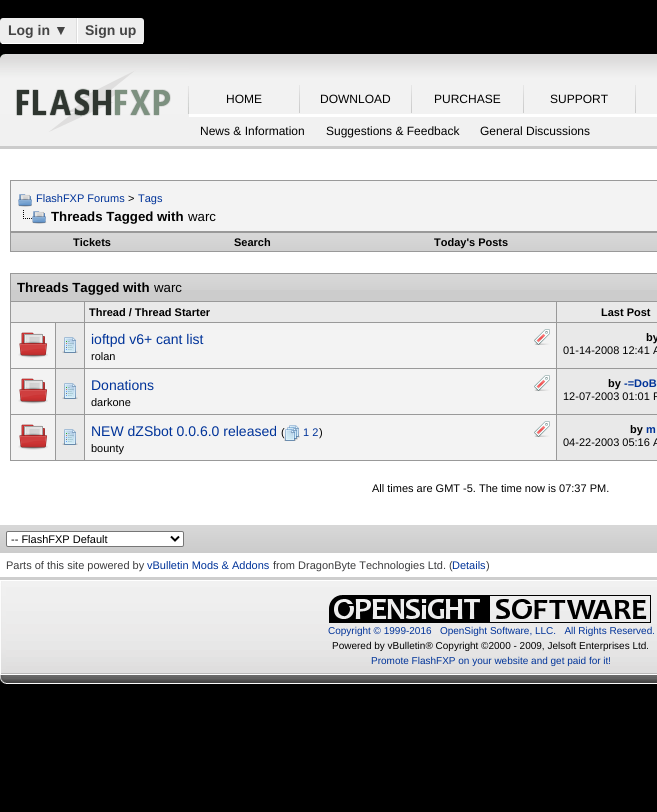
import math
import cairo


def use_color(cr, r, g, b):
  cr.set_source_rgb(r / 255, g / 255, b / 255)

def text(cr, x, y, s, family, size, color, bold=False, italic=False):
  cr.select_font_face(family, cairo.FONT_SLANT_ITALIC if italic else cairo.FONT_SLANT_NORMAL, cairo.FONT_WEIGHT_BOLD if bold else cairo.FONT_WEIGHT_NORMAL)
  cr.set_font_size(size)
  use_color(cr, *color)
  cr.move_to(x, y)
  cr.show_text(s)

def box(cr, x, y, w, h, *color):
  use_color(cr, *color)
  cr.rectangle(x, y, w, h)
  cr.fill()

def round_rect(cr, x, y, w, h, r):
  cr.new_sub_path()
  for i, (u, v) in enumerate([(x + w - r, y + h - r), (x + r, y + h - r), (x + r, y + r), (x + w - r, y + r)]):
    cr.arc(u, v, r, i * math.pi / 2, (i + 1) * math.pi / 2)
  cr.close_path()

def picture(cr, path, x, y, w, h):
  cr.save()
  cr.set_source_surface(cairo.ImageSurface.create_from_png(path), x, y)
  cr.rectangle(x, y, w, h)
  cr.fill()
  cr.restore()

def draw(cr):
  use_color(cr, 0, 0, 0)
  cr.paint()
  use_color(cr, 238, 238, 238)
  round_rect(cr, 0, 18, 144, 26, 3)
  cr.fill()
  box(cr, 2, 43, 141, 1, 255, 255, 255)
  box(cr, 77, 18, 1, 25, 255, 255, 255)
  box(cr, 76, 18, 1, 25, 221, 221, 221)
  picture(cr, "img_01.png", 189, 54, 468, 63)
  picture(cr, "img_04.png", 0, 117, 657, 32)
  picture(cr, "img_02.png", 0, 54, 189, 78)
  picture(cr, "img_03.png", 299, 85, 1, 28)
  picture(cr, "img_03.png", 411, 85, 1, 28)
  picture(cr, "img_03.png", 523, 85, 1, 28)
  picture(cr, "img_03.png", 635, 85, 1, 28)
  box(cr, 0, 149, 657, 376, 255, 255, 255)
  box(cr, 10, 180, 647, 72, 153, 153, 153)
  box(cr, 11, 181, 646, 50, 243, 243, 243)
  picture(cr, "img_05.png", 18, 194, 14, 13)
  picture(cr, "img_06.png", 23, 210, 24, 14)
  picture(cr, "img_07.png", 11, 233, 162, 18)
  picture(cr, "img_08.png", 173, 233, 158, 18)
  picture(cr, "img_09.png", 331, 233, 280, 18)
  picture(cr, "img_10.png", 611, 233, 46, 18)
  box(cr, 10, 273, 647, 188, 153, 153, 153)
  box(cr, 11, 290, 646, 11, 204, 204, 204)
  picture(cr, "img_11.png", 11, 274, 646, 16)
  box(cr, 11, 302, 73, 20, 233, 233, 233)
  box(cr, 85, 302, 471, 20, 233, 233, 233)
  box(cr, 557, 302, 100, 20, 233, 233, 233)
  box(cr, 11, 323, 44, 45, 243, 243, 243)
  picture(cr, "img_12.png", 18, 332, 30, 26)
  box(cr, 56, 323, 28, 45, 233, 233, 233)
  picture(cr, "img_13.png", 62, 337, 16, 16)
  box(cr, 85, 323, 471, 45, 243, 243, 243)
  picture(cr, "img_14.png", 534, 329, 16, 16)
  box(cr, 557, 323, 100, 45, 233, 233, 233)
  box(cr, 11, 369, 44, 45, 243, 243, 243)
  picture(cr, "img_12.png", 18, 378, 30, 26)
  box(cr, 56, 369, 28, 45, 233, 233, 233)
  picture(cr, "img_13.png", 62, 383, 16, 16)
  box(cr, 85, 369, 471, 45, 243, 243, 243)
  picture(cr, "img_14.png", 534, 375, 16, 16)
  box(cr, 557, 369, 100, 45, 233, 233, 233)
  box(cr, 11, 415, 44, 45, 243, 243, 243)
  picture(cr, "img_12.png", 18, 424, 30, 26)
  box(cr, 56, 415, 28, 45, 233, 233, 233)
  picture(cr, "img_13.png", 62, 429, 16, 16)
  box(cr, 85, 415, 471, 45, 243, 243, 243)
  picture(cr, "img_14.png", 534, 421, 16, 16)
  box(cr, 557, 415, 100, 45, 233, 233, 233)
  box(cr, 0, 553, 657, 24, 255, 255, 255)
  picture(cr, "img_16.png", 0, 525, 190, 28)
  round_rect(cr, 6.5, 531.5, 177, 15, 1.5)
  cr.fill_preserve()
  use_color(cr, 118, 118, 118)
  cr.set_line_width(1)
  cr.stroke()
  cr.new_path()
  cr.move_to(171, 536.5)
  cr.line_to(175, 540.5)
  cr.line_to(179, 536.5)
  use_color(cr, 0, 0, 0)
  cr.set_line_width(2)
  cr.stroke()
  picture(cr, "img_17.png", 190, 525, 467, 28)
  box(cr, 0, 577, 657, 3, 206, 206, 206)
  picture(cr, "img_18.png", 0, 580, 6, 104)
  picture(cr, "img_19.png", 6, 580, 651, 104)
  picture(cr, "img_20.png", 329, 595, 322, 28)
  text(cr, 8, 35, "Log in ▼", "Liberation Sans", 14, (68, 68, 68), bold=True)
  text(cr, 85, 35, "Sign up", "Liberation Sans", 14, (68, 68, 68), bold=True)
  text(cr, 226, 103, "HOME", "Liberation Sans", 12, (0, 0, 0))
  text(cr, 320, 103, "DOWNLOAD", "Liberation Sans", 12, (0, 0, 0))
  text(cr, 434, 103, "PURCHASE", "Liberation Sans", 12, (0, 0, 0))
  text(cr, 550, 103, "SUPPORT", "Liberation Sans", 12, (0, 0, 0))
  text(cr, 200, 135, "News & Information", "Liberation Sans", 12, (0, 0, 0))
  text(cr, 326, 135, "Suggestions & Feedback", "Liberation Sans", 12, (0, 0, 0))
  text(cr, 480, 135, "General Discussions", "Liberation Sans", 12, (0, 0, 0))
  text(cr, 36, 202, "FlashFXP Forums", "Liberation Sans", 11, (0, 51, 153))
  text(cr, 128, 202, ">", "Liberation Sans", 11, (0, 0, 0))
  text(cr, 138, 202, "Tags", "Liberation Sans", 11, (0, 51, 153))
  text(cr, 51, 221, "Threads Tagged with", "Liberation Sans", 13.25, (0, 0, 0), bold=True)
  text(cr, 188, 221, "warc", "Liberation Sans", 13.25, (0, 0, 0))
  text(cr, 73, 246, "Tickets", "Liberation Sans", 11, (0, 0, 0), bold=True)
  text(cr, 234, 246, "Search", "Liberation Sans", 11, (0, 0, 0), bold=True)
  text(cr, 434, 246, "Today's Posts", "Liberation Sans", 11, (0, 0, 0), bold=True)
  text(cr, 17, 292, "Threads Tagged with", "Liberation Sans", 13.25, (0, 0, 0), bold=True)
  text(cr, 154, 292, "warc", "Liberation Sans", 13.25, (0, 0, 0))
  text(cr, 89, 316, "Thread / Thread Starter", "Liberation Sans", 11, (0, 0, 0), bold=True)
  text(cr, 601, 316, "Last Post", "Liberation Sans", 11, (0, 0, 0), bold=True)
  text(cr, 91, 344, "ioftpd v6+ cant list", "Liberation Sans", 14, (0, 51, 153))
  text(cr, 91, 360, "rolan", "Liberation Sans", 11, (0, 0, 0))
  text(cr, 646, 341, "by", "Liberation Sans", 11, (0, 0, 0), bold=True)
  text(cr, 563, 354, "01-14-2008 12:41 A", "Liberation Sans", 11, (0, 0, 0))
  text(cr, 91, 390, "Donations", "Liberation Sans", 14, (0, 51, 153))
  text(cr, 91, 406, "darkone", "Liberation Sans", 11, (0, 0, 0))
  text(cr, 608, 387, "by", "Liberation Sans", 11, (0, 0, 0), bold=True)
  text(cr, 624, 387, "-=DoB", "Liberation Sans", 11, (0, 51, 153), bold=True)
  text(cr, 563, 400, "12-07-2003 01:01 P", "Liberation Sans", 11, (0, 0, 0))
  text(cr, 91, 436, "NEW dZSbot 0.0.6.0 released", "Liberation Sans", 14, (0, 51, 153))
  text(cr, 281, 436, "(", "Liberation Sans", 11, (0, 0, 0))
  picture(cr, "img_15.png", 284, 425, 16, 16)
  text(cr, 303, 436, "1 2", "Liberation Sans", 11, (0, 51, 153))
  text(cr, 319, 436, ")", "Liberation Sans", 11, (0, 0, 0))
  text(cr, 91, 452, "bounty", "Liberation Sans", 11, (0, 0, 0))
  text(cr, 630, 433, "by", "Liberation Sans", 11, (0, 0, 0), bold=True)
  text(cr, 646, 433, "m", "Liberation Sans", 11, (0, 51, 153), bold=True)
  text(cr, 563, 446, "04-22-2003 05:16 A", "Liberation Sans", 11, (0, 0, 0))
  text(cr, 372, 492, "All times are GMT -5. The time now is 07:37 PM.", "Liberation Sans", 11, (0, 0, 0))
  text(cr, 11, 543, "-- FlashFXP Default", "Liberation Sans", 11, (0, 0, 0))
  text(cr, 6, 569, "Parts of this site powered by", "Liberation Sans", 11, (60, 60, 61))
  text(cr, 147, 569, "vBulletin Mods & Addons", "Liberation Sans", 11, (0, 51, 153))
  text(cr, 273, 569, "from DragonByte Technologies Ltd. (", "Liberation Sans", 11, (60, 60, 61))
  text(cr, 452, 569, "Details", "Liberation Sans", 11, (0, 51, 153))
  text(cr, 486, 569, ")", "Liberation Sans", 11, (60, 60, 61))
  text(cr, 328, 634, "Copyright © 1999-2016   OpenSight Software, LLC.   All Rights Reserved.", "Liberation Sans", 10, (0, 51, 153))
  text(cr, 332, 649, "Powered by vBulletin® Copyright ©2000 - 2009, Jelsoft Enterprises Ltd.", "Liberation Sans", 10, (0, 0, 0))
  text(cr, 371, 664, "Promote FlashFXP on your website and get paid for it!", "Liberation Sans", 10, (0, 51, 153))


surface = cairo.ImageSurface(cairo.FORMAT_RGB24, 657, 812)
cr = cairo.Context(surface)
options = cairo.FontOptions()
options.set_hint_metrics(cairo.HINT_METRICS_OFF)
options.set_hint_style(cairo.HINT_STYLE_NONE)
cr.set_font_options(options)
cr.set_miter_limit(4)
draw(cr)
surface.write_to_png("out.png")
